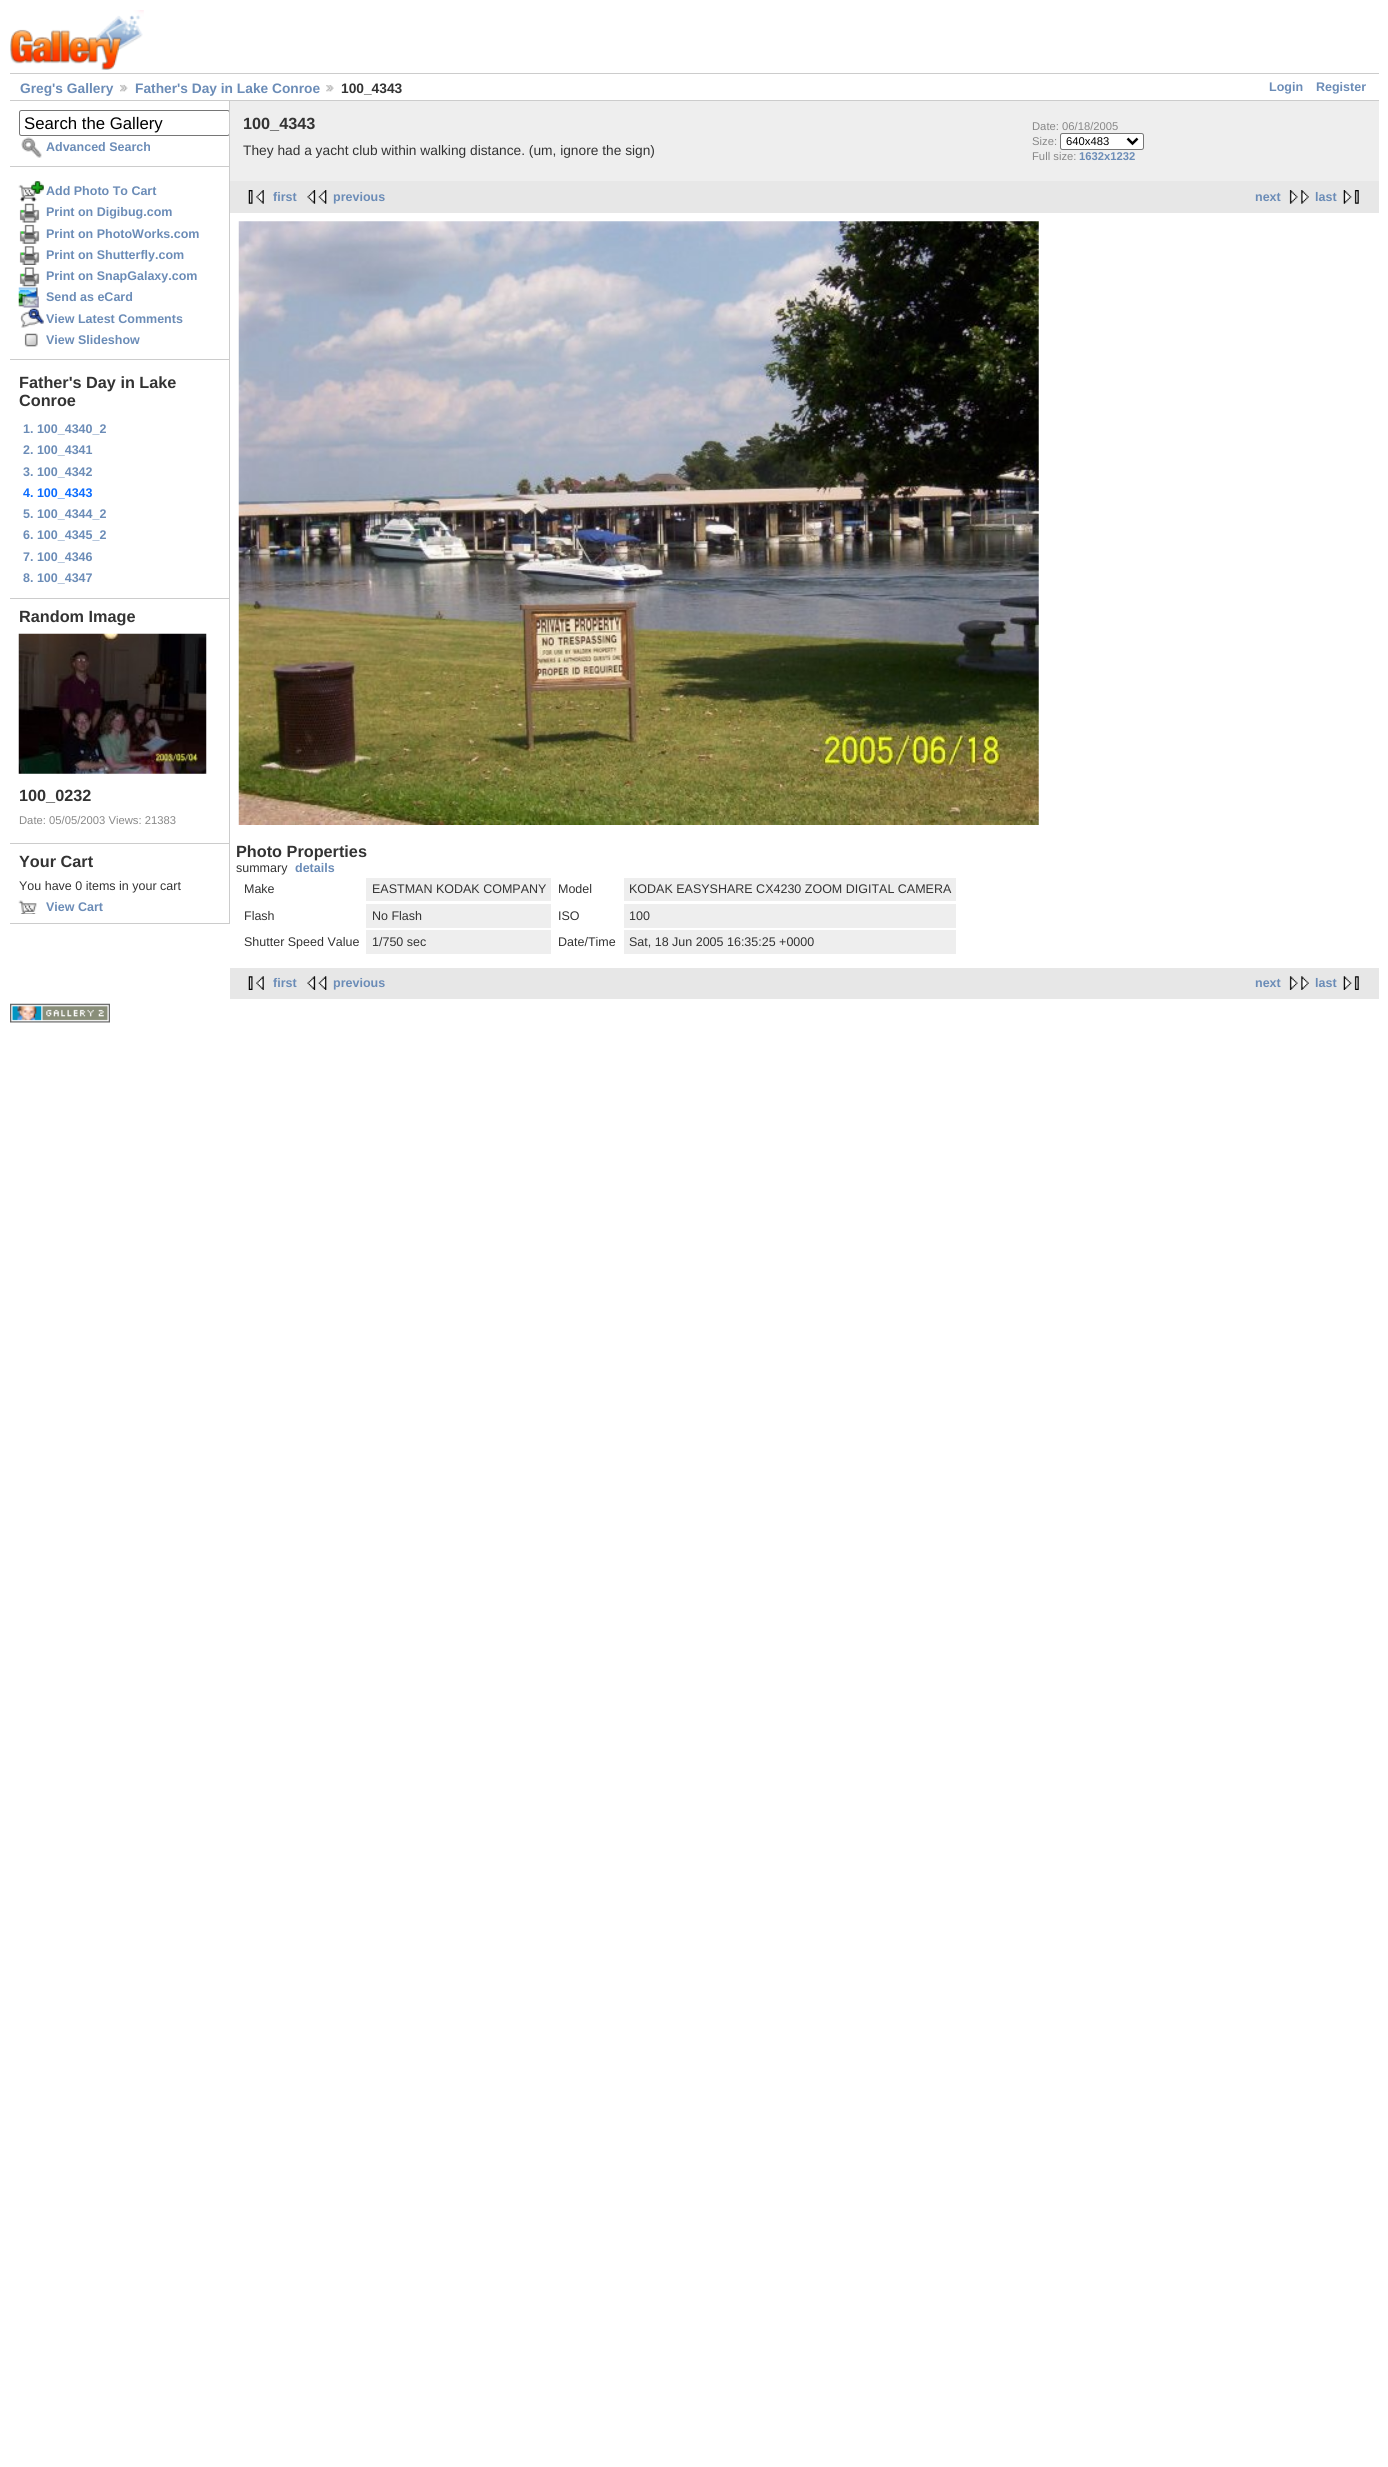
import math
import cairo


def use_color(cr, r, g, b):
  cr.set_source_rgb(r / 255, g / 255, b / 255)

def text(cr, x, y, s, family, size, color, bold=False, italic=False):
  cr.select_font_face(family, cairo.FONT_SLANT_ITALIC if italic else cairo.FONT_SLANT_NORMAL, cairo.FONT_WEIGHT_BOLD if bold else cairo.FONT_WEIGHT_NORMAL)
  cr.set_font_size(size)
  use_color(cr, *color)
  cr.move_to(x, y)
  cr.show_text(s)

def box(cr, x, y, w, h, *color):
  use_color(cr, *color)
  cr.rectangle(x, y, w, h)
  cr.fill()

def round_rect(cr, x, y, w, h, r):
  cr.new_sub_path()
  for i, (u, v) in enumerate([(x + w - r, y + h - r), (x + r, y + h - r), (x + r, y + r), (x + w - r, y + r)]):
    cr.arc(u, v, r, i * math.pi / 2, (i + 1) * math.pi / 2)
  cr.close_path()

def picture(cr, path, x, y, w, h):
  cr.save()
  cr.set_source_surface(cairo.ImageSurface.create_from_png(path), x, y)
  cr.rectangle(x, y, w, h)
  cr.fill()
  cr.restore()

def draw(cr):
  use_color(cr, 255, 255, 255)
  cr.paint()
  picture(cr, "img_01.png", 10, 10, 134, 60)
  box(cr, 10, 73, 1369, 1, 204, 204, 204)
  box(cr, 10, 100, 1369, 1, 204, 204, 204)
  picture(cr, "img_02.png", 120, 84, 8, 8)
  picture(cr, "img_03.png", 326, 85, 8, 7)
  box(cr, 229, 101, 1, 823, 204, 204, 204)
  box(cr, 10, 166, 219, 1, 204, 204, 204)
  cr.save()
  cr.rectangle(10, 101, 219, 823)
  cr.clip()
  round_rect(cr, 19.5, 110.5, 210, 25, 2)
  use_color(cr, 118, 118, 118)
  cr.set_line_width(1)
  cr.stroke()
  cr.restore()
  picture(cr, "img_04.png", 21, 137, 21, 21)
  box(cr, 10, 359, 219, 1, 204, 204, 204)
  picture(cr, "img_05.png", 18, 181, 26, 21)
  picture(cr, "img_06.png", 19, 203, 21, 20)
  picture(cr, "img_07.png", 19, 224, 21, 20)
  picture(cr, "img_08.png", 19, 246, 21, 19)
  picture(cr, "img_09.png", 19, 267, 21, 20)
  picture(cr, "img_10.png", 18, 287, 21, 21)
  picture(cr, "img_11.png", 20, 308, 24, 20)
  picture(cr, "img_12.png", 24, 333, 14, 14)
  box(cr, 10, 598, 219, 1, 204, 204, 204)
  box(cr, 10, 843, 219, 1, 204, 204, 204)
  picture(cr, "img_13.png", 18, 633, 189, 141)
  box(cr, 10, 923, 219, 1, 204, 204, 204)
  picture(cr, "img_14.png", 18, 900, 19, 14)
  box(cr, 230, 101, 1149, 80, 238, 238, 238)
  use_color(cr, 255, 255, 255)
  round_rect(cr, 1060.5, 133.5, 83, 16, 2)
  cr.fill_preserve()
  use_color(cr, 118, 118, 118)
  cr.set_line_width(1)
  cr.stroke()
  cr.new_path()
  cr.move_to(1127.5, 138.5)
  cr.line_to(1132.5, 143.5)
  cr.line_to(1137.5, 138.5)
  use_color(cr, 0, 0, 0)
  cr.set_line_width(2.5)
  cr.stroke()
  box(cr, 230, 181, 1149, 32, 231, 231, 231)
  picture(cr, "img_15.png", 248, 190, 16, 14)
  picture(cr, "img_16.png", 307, 190, 20, 14)
  picture(cr, "img_17.png", 1289, 190, 20, 14)
  picture(cr, "img_18.png", 1343, 190, 16, 14)
  picture(cr, "img_19.png", 238, 221, 801, 604)
  box(cr, 366, 878, 185, 23, 238, 238, 238)
  box(cr, 624, 878, 332, 23, 238, 238, 238)
  box(cr, 366, 904, 185, 24, 238, 238, 238)
  box(cr, 624, 904, 332, 24, 238, 238, 238)
  box(cr, 366, 930, 185, 24, 238, 238, 238)
  box(cr, 624, 930, 332, 24, 238, 238, 238)
  box(cr, 230, 968, 1149, 31, 231, 231, 231)
  picture(cr, "img_20.png", 248, 976, 16, 14)
  picture(cr, "img_21.png", 307, 976, 20, 14)
  picture(cr, "img_22.png", 1289, 976, 20, 14)
  picture(cr, "img_23.png", 1343, 976, 16, 14)
  picture(cr, "img_24.png", 10, 1003, 100, 20)
  text(cr, 20, 93, "Greg's Gallery", "Liberation Sans", 13.75, (107, 140, 183), bold=True)
  text(cr, 135, 93, "Father's Day in Lake Conroe", "Liberation Sans", 13.75, (107, 140, 183), bold=True)
  text(cr, 341, 93, "100_4343", "Liberation Sans", 13.75, (51, 51, 51), bold=True)
  text(cr, 1269, 91, "Login", "Liberation Sans", 12.5, (107, 140, 183), bold=True)
  text(cr, 1316, 91, "Register", "Liberation Sans", 12.5, (107, 140, 183), bold=True)
  text(cr, 24, 129, "Search the Gallery", "Liberation Sans", 16.75, (0, 0, 0))
  text(cr, 46, 151, "Advanced Search", "Liberation Sans", 12.5, (107, 140, 183), bold=True)
  text(cr, 46, 195, "Add Photo To Cart", "Liberation Sans", 12.5, (107, 140, 183), bold=True)
  text(cr, 46, 216, "Print on Digibug.com", "Liberation Sans", 12.5, (107, 140, 183), bold=True)
  text(cr, 46, 238, "Print on PhotoWorks.com", "Liberation Sans", 12.5, (107, 140, 183), bold=True)
  text(cr, 46, 259, "Print on Shutterfly.com", "Liberation Sans", 12.5, (107, 140, 183), bold=True)
  text(cr, 46, 280, "Print on SnapGalaxy.com", "Liberation Sans", 12.5, (107, 140, 183), bold=True)
  text(cr, 46, 301, "Send as eCard", "Liberation Sans", 12.5, (107, 140, 183), bold=True)
  text(cr, 46, 323, "View Latest Comments", "Liberation Sans", 12.5, (107, 140, 183), bold=True)
  text(cr, 46, 344, "View Slideshow", "Liberation Sans", 12.5, (107, 140, 183), bold=True)
  text(cr, 19, 388, "Father's Day in Lake", "Liberation Sans", 16.25, (51, 51, 51), bold=True)
  text(cr, 19, 406, "Conroe", "Liberation Sans", 16.25, (51, 51, 51), bold=True)
  text(cr, 23, 433, "1. 100_4340_2", "Liberation Sans", 12.5, (107, 140, 183), bold=True)
  text(cr, 23, 454, "2. 100_4341", "Liberation Sans", 12.5, (107, 140, 183), bold=True)
  text(cr, 23, 476, "3. 100_4342", "Liberation Sans", 12.5, (107, 140, 183), bold=True)
  text(cr, 23, 497, "4. 100_4343", "Liberation Sans", 12.5, (11, 108, 255), bold=True)
  text(cr, 23, 518, "5. 100_4344_2", "Liberation Sans", 12.5, (107, 140, 183), bold=True)
  text(cr, 23, 539, "6. 100_4345_2", "Liberation Sans", 12.5, (107, 140, 183), bold=True)
  text(cr, 23, 561, "7. 100_4346", "Liberation Sans", 12.5, (107, 140, 183), bold=True)
  text(cr, 23, 582, "8. 100_4347", "Liberation Sans", 12.5, (107, 140, 183), bold=True)
  text(cr, 19, 622, "Random Image", "Liberation Sans", 16.25, (51, 51, 51), bold=True)
  text(cr, 19, 801, "100_0232", "Liberation Sans", 16.25, (51, 51, 51), bold=True)
  text(cr, 19, 824, "Date: 05/05/2003 Views: 21383", "Liberation Sans", 11.25, (136, 136, 136))
  text(cr, 19, 867, "Your Cart", "Liberation Sans", 16.25, (51, 51, 51), bold=True)
  text(cr, 19, 890, "You have 0 items in your cart", "Liberation Sans", 12.5, (51, 51, 51))
  text(cr, 46, 911, "View Cart", "Liberation Sans", 12.5, (107, 140, 183), bold=True)
  text(cr, 243, 129, "100_4343", "Liberation Sans", 16.25, (51, 51, 51), bold=True)
  text(cr, 243, 155, "They had a yacht club within walking distance. (um, ignore the sign)", "Liberation Sans", 13.75, (51, 51, 51))
  text(cr, 1032, 130, "Date: 06/18/2005", "Liberation Sans", 11.25, (136, 136, 136))
  text(cr, 1032, 145, "Size:", "Liberation Sans", 11.25, (136, 136, 136))
  text(cr, 1066, 145, "640x483", "Liberation Sans", 11.25, (0, 0, 0))
  text(cr, 1032, 160, "Full size:", "Liberation Sans", 11.25, (136, 136, 136))
  text(cr, 1079, 160, "1632x1232", "Liberation Sans", 11.25, (107, 140, 183), bold=True)
  text(cr, 273, 201, "first", "Liberation Sans", 12.5, (107, 140, 183), bold=True)
  text(cr, 333, 201, "previous", "Liberation Sans", 12.5, (107, 140, 183), bold=True)
  text(cr, 1255, 201, "next", "Liberation Sans", 12.5, (107, 140, 183), bold=True)
  text(cr, 1315, 201, "last", "Liberation Sans", 12.5, (107, 140, 183), bold=True)
  text(cr, 236, 857, "Photo Properties", "Liberation Sans", 16.25, (51, 51, 51), bold=True)
  text(cr, 236, 872, "summary", "Liberation Sans", 12.5, (51, 51, 51))
  text(cr, 295, 872, "details", "Liberation Sans", 12.5, (107, 140, 183), bold=True)
  text(cr, 244, 893, "Make", "Liberation Sans", 12.5, (51, 51, 51))
  text(cr, 372, 893, "EASTMAN KODAK COMPANY", "Liberation Sans", 12.5, (51, 51, 51))
  text(cr, 558, 893, "Model", "Liberation Sans", 12.5, (51, 51, 51))
  text(cr, 629, 893, "KODAK EASYSHARE CX4230 ZOOM DIGITAL CAMERA", "Liberation Sans", 12.5, (51, 51, 51))
  text(cr, 244, 920, "Flash", "Liberation Sans", 12.5, (51, 51, 51))
  text(cr, 372, 920, "No Flash", "Liberation Sans", 12.5, (51, 51, 51))
  text(cr, 558, 920, "ISO", "Liberation Sans", 12.5, (51, 51, 51))
  text(cr, 629, 920, "100", "Liberation Sans", 12.5, (51, 51, 51))
  text(cr, 244, 946, "Shutter Speed Value", "Liberation Sans", 12.5, (51, 51, 51))
  text(cr, 372, 946, "1/750 sec", "Liberation Sans", 12.5, (51, 51, 51))
  text(cr, 558, 946, "Date/Time", "Liberation Sans", 12.5, (51, 51, 51))
  text(cr, 629, 946, "Sat, 18 Jun 2005 16:35:25 +0000", "Liberation Sans", 12.5, (51, 51, 51))
  text(cr, 273, 987, "first", "Liberation Sans", 12.5, (107, 140, 183), bold=True)
  text(cr, 333, 987, "previous", "Liberation Sans", 12.5, (107, 140, 183), bold=True)
  text(cr, 1255, 987, "next", "Liberation Sans", 12.5, (107, 140, 183), bold=True)
  text(cr, 1315, 987, "last", "Liberation Sans", 12.5, (107, 140, 183), bold=True)


surface = cairo.ImageSurface(cairo.FORMAT_RGB24, 1388, 2467)
cr = cairo.Context(surface)
options = cairo.FontOptions()
options.set_hint_metrics(cairo.HINT_METRICS_OFF)
options.set_hint_style(cairo.HINT_STYLE_NONE)
cr.set_font_options(options)
cr.set_miter_limit(4)
draw(cr)
surface.write_to_png("out.png")
